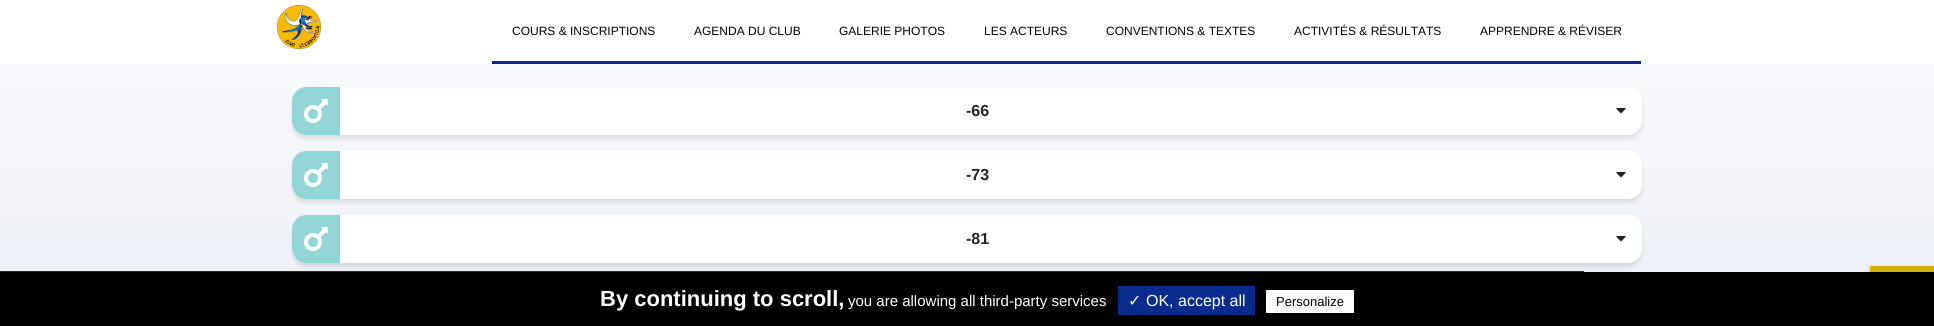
import math
import cairo


def use_color(cr, r, g, b):
  cr.set_source_rgb(r / 255, g / 255, b / 255)

def text(cr, x, y, s, family, size, color, bold=False, italic=False):
  cr.select_font_face(family, cairo.FONT_SLANT_ITALIC if italic else cairo.FONT_SLANT_NORMAL, cairo.FONT_WEIGHT_BOLD if bold else cairo.FONT_WEIGHT_NORMAL)
  cr.set_font_size(size)
  use_color(cr, *color)
  cr.move_to(x, y)
  cr.show_text(s)

def box(cr, x, y, w, h, *color):
  use_color(cr, *color)
  cr.rectangle(x, y, w, h)
  cr.fill()

def round_rect(cr, x, y, w, h, r):
  cr.new_sub_path()
  for i, (u, v) in enumerate([(x + w - r, y + h - r), (x + r, y + h - r), (x + r, y + r), (x + w - r, y + r)]):
    cr.arc(u, v, r, i * math.pi / 2, (i + 1) * math.pi / 2)
  cr.close_path()

def shadow(cr, x, y, w, h, r, blur, alpha):
  cr.push_group_with_content(cairo.CONTENT_ALPHA)
  cr.set_operator(cairo.OPERATOR_SOURCE)
  for i in range(15, -16, -2):
    e = blur * i / 6
    if min(w, h) + 2 * e > 0:
      cr.set_source_rgba(0, 0, 0, alpha * math.erfc((i - 1) / 8.5) / 2)
      round_rect(cr, x - e, y - e, w + 2 * e, h + 2 * e, max(0, min(r + e + blur * .6, min(w, h) / 2 + e)))
      cr.fill()
  cr.mask(cr.pop_group())

def picture(cr, path, x, y, w, h):
  cr.save()
  cr.set_source_surface(cairo.ImageSurface.create_from_png(path), x, y)
  cr.rectangle(x, y, w, h)
  cr.fill()
  cr.restore()

def draw(cr):
  use_color(cr, 255, 255, 255)
  cr.paint()
  picture(cr, "img_01.png", 277, 5, 44, 44)
  box(cr, 492, 61, 1149, 3, 8, 44, 140)
  gradient = cairo.LinearGradient(967, 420, 967, -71)
  gradient.add_color_stop_rgba(0, 0.906, 0.922, 0.957, 1)
  gradient.add_color_stop_rgba(1, 1, 1, 1, 1)
  cr.set_source(gradient)
  cr.rectangle(0, 64, 1934, 208)
  cr.fill()
  use_color(cr, 0, 0, 0)
  shadow(cr, 292, 91, 1350, 48, 14, 2, 0.1)
  use_color(cr, 255, 255, 255)
  round_rect(cr, 292, 87, 1350, 48, 14)
  cr.fill()
  use_color(cr, 147, 212, 212)
  cr.new_path()
  cr.move_to(306, 87)
  cr.line_to(340, 87)
  cr.line_to(340, 135)
  cr.line_to(306, 135)
  cr.curve_to(298.5, 135, 292, 128.5, 292, 121)
  cr.line_to(292, 101)
  cr.curve_to(292, 93.5, 298.5, 87, 306, 87)
  cr.close_path()
  cr.fill()
  picture(cr, "img_02.png", 304, 99, 24, 24)
  picture(cr, "img_03.png", 1616, 108, 10, 6)
  use_color(cr, 0, 0, 0)
  shadow(cr, 292, 155, 1350, 48, 14, 2, 0.1)
  use_color(cr, 255, 255, 255)
  round_rect(cr, 292, 151, 1350, 48, 14)
  cr.fill()
  use_color(cr, 147, 212, 212)
  cr.new_path()
  cr.move_to(306, 151)
  cr.line_to(340, 151)
  cr.line_to(340, 199)
  cr.line_to(306, 199)
  cr.curve_to(298.5, 199, 292, 192.5, 292, 185)
  cr.line_to(292, 165)
  cr.curve_to(292, 157.5, 298.5, 151, 306, 151)
  cr.close_path()
  cr.fill()
  picture(cr, "img_02.png", 304, 163, 24, 24)
  picture(cr, "img_03.png", 1616, 172, 10, 6)
  use_color(cr, 0, 0, 0)
  shadow(cr, 292, 219, 1350, 48, 14, 2, 0.1)
  use_color(cr, 255, 255, 255)
  round_rect(cr, 292, 215, 1350, 48, 14)
  cr.fill()
  use_color(cr, 147, 212, 212)
  cr.new_path()
  cr.move_to(306, 215)
  cr.line_to(340, 215)
  cr.line_to(340, 263)
  cr.line_to(306, 263)
  cr.curve_to(298.5, 263, 292, 256.5, 292, 249)
  cr.line_to(292, 229)
  cr.curve_to(292, 221.5, 298.5, 215, 306, 215)
  cr.close_path()
  cr.fill()
  picture(cr, "img_02.png", 304, 227, 24, 24)
  picture(cr, "img_03.png", 1616, 236, 10, 6)
  use_color(cr, 85, 85, 85)
  shadow(cr, 0, 272, 1584, 5, 0, 1, 1)
  use_color(cr, 255, 255, 255)
  shadow(cr, 0, 271, 1584, 5, 0, 1, 1)
  box(cr, 0, 271, 1584, 1, 8, 44, 140)
  use_color(cr, 0, 0, 0)
  shadow(cr, 1870, 268, 64, 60, 0, 2, 0.2)
  box(cr, 0, 272, 1934, 54, 0, 0, 0)
  box(cr, 1118, 286, 137, 29, 8, 44, 140)
  box(cr, 1266, 290, 88, 23, 255, 255, 255)
  box(cr, 1870, 266, 64, 6, 214, 177, 0)
  text(cr, 512, 35, "COURS & INSCRIPTIONS", "Liberation Sans", 12, (0, 0, 0))
  text(cr, 694, 35, "AGENDA DU CLUB", "Liberation Sans", 12, (0, 0, 0))
  text(cr, 839, 35, "GALERIE PHOTOS", "Liberation Sans", 12, (0, 0, 0))
  text(cr, 984, 35, "LES ACTEURS", "Liberation Sans", 12, (0, 0, 0))
  text(cr, 1106, 35, "CONVENTIONS & TEXTES", "Liberation Sans", 12, (0, 0, 0))
  text(cr, 1294, 35, "ACTIVITÉS & RÉSULTATS", "Liberation Sans", 12, (0, 0, 0))
  text(cr, 1480, 35, "APPRENDRE & RÉVISER", "Liberation Sans", 12, (0, 0, 0))
  text(cr, 966, 116, "-66", "Liberation Sans", 16, (33, 37, 41), bold=True)
  text(cr, 966, 180, "-73", "Liberation Sans", 16, (33, 37, 41), bold=True)
  text(cr, 966, 244, "-81", "Liberation Sans", 16, (33, 37, 41), bold=True)
  text(cr, 600, 306, "By continuing to scroll,", "Liberation Sans", 22, (255, 255, 255), bold=True)
  text(cr, 848, 306, "you are allowing all third-party services", "Liberation Sans", 15, (255, 255, 255))
  text(cr, 1128, 306, "✓", "DejaVu Sans", 16, (255, 255, 255))
  text(cr, 1146, 306, "OK, accept all", "Liberation Sans", 16, (255, 255, 255))
  text(cr, 1276, 306, "Personalize", "Liberation Sans", 13, (0, 0, 0))


surface = cairo.ImageSurface(cairo.FORMAT_RGB24, 1934, 326)
cr = cairo.Context(surface)
options = cairo.FontOptions()
options.set_hint_metrics(cairo.HINT_METRICS_OFF)
options.set_hint_style(cairo.HINT_STYLE_NONE)
cr.set_font_options(options)
cr.set_miter_limit(4)
draw(cr)
surface.write_to_png("out.png")
